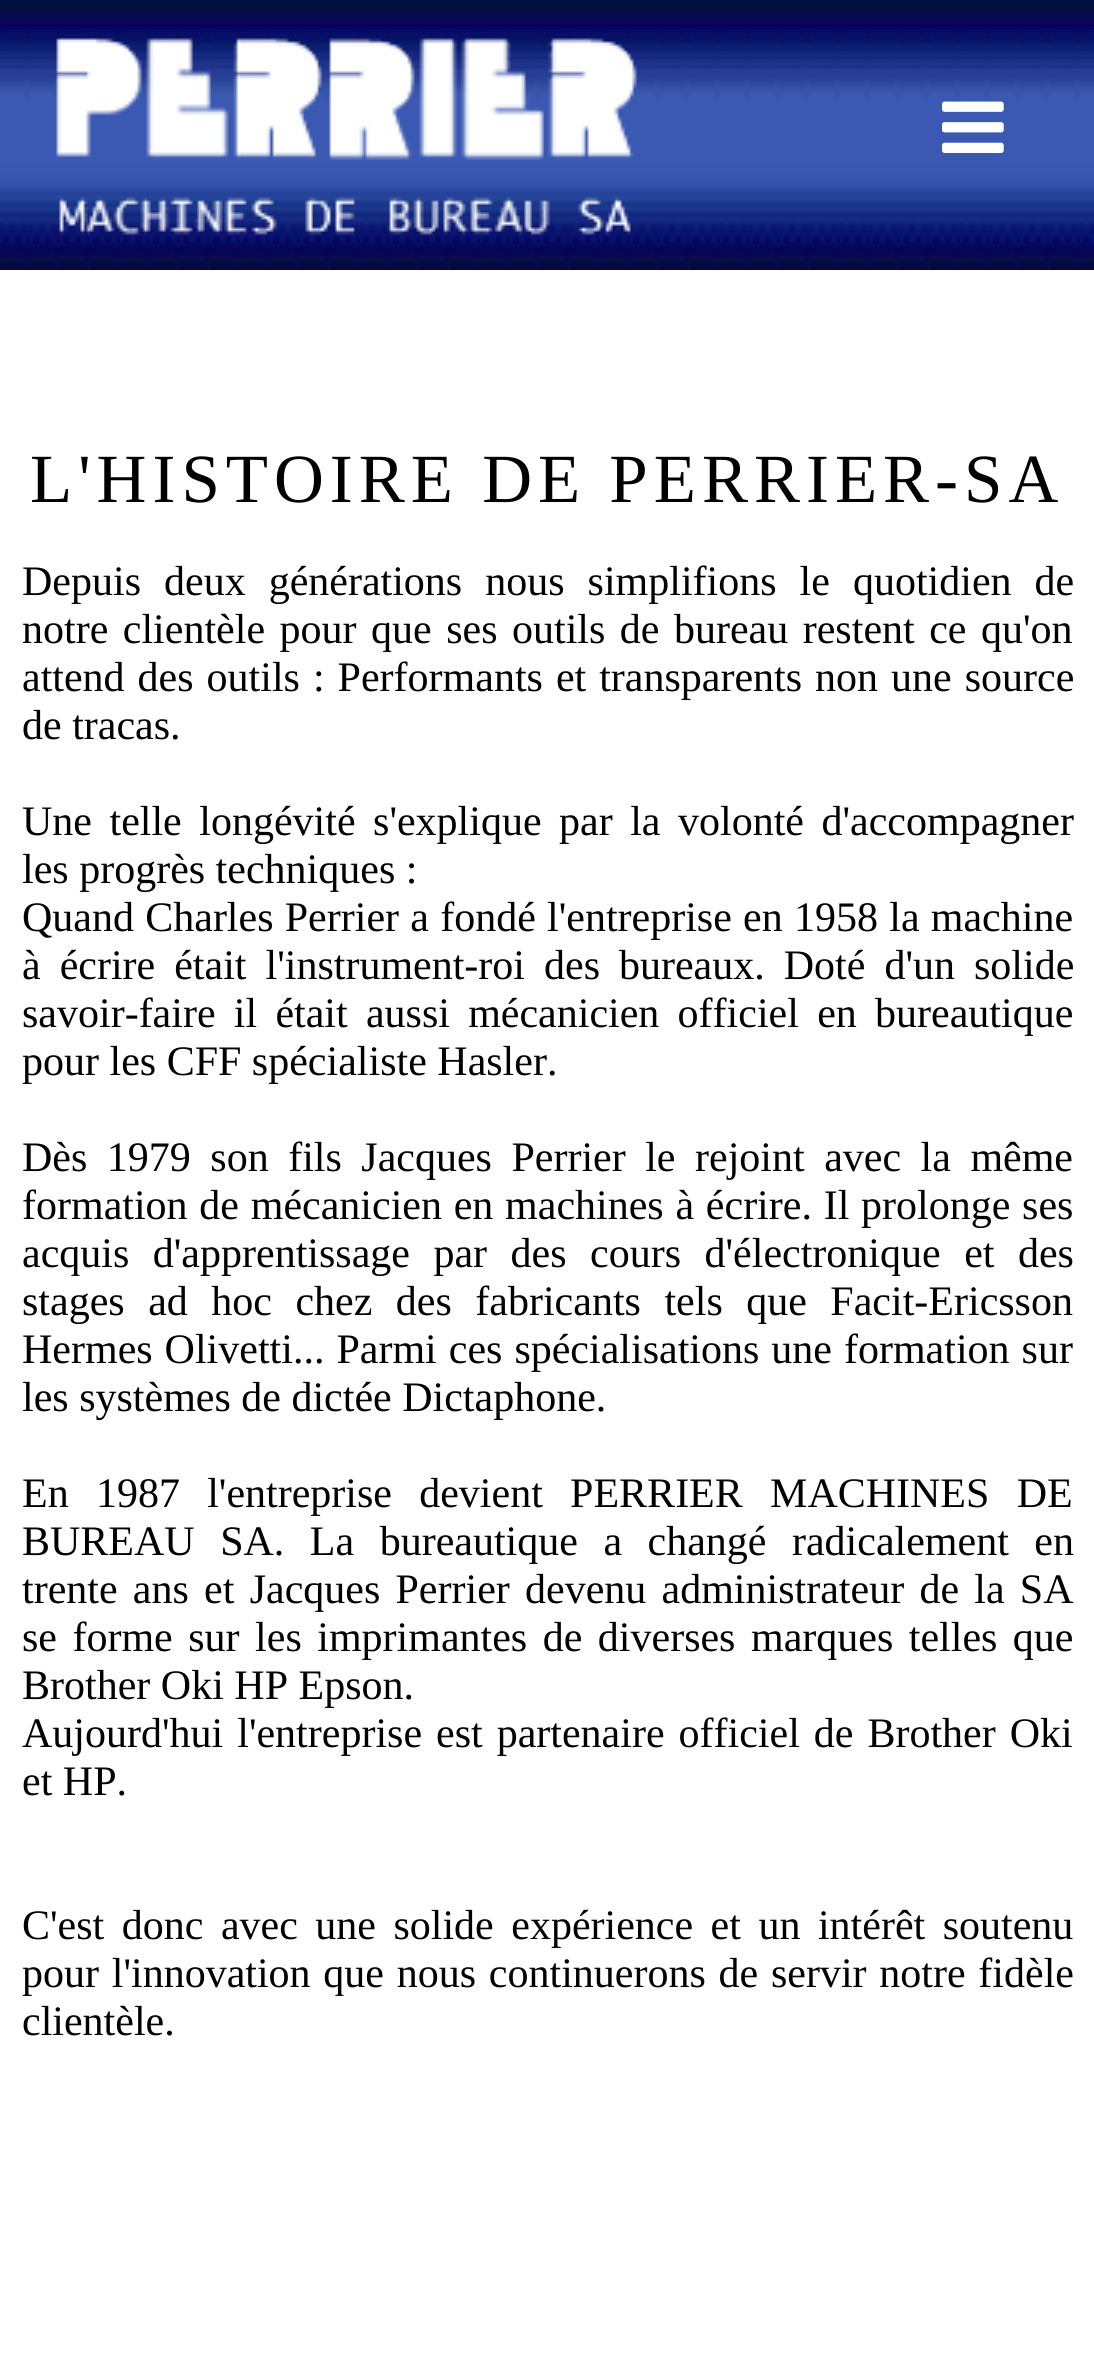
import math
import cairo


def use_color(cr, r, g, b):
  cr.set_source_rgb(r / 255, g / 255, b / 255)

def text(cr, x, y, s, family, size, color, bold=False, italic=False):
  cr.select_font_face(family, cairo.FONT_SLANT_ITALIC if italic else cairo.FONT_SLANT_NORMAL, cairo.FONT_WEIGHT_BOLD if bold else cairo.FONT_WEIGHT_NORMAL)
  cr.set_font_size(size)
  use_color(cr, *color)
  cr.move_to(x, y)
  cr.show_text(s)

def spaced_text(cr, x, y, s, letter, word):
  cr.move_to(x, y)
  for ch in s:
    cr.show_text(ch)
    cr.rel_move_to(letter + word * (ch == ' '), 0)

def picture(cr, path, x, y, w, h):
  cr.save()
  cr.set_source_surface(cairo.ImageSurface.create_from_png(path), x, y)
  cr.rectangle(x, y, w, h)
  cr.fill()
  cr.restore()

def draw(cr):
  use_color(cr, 255, 255, 255)
  cr.paint()
  picture(cr, "img_01.png", 0, 0, 1094, 270)
  picture(cr, "img_02.png", 56, 38, 581, 197)
  picture(cr, "img_03.png", 942, 101, 62, 52)
  cr.select_font_face("Liberation Serif")
  cr.set_font_size(69)
  use_color(cr, 0, 0, 0)
  spaced_text(cr, 30, 502, "L'HISTOIRE DE PERRIER-SA", 6, 0)
  cr.set_font_size(42)
  spaced_text(cr, 22, 595, "Depuis deux générations nous simplifions le quotidien de", 0, 12.5)
  spaced_text(cr, 22, 643, "notre clientèle pour que ses outils de bureau restent ce qu'on", 0, 4)
  spaced_text(cr, 22, 691, "attend des outils : Performants et transparents non une source", 0, 2.5)
  text(cr, 22, 739, "de tracas.", "Liberation Serif", 42, (0, 0, 0))
  spaced_text(cr, 22, 835, "Une telle longévité s'explique par la volonté d'accompagner", 0, 7)
  text(cr, 22, 883, "les progrès techniques :", "Liberation Serif", 42, (0, 0, 0))
  spaced_text(cr, 22, 931, "Quand Charles Perrier a fondé l'entreprise en 1958 la machine", 0, 0.75)
  spaced_text(cr, 22, 979, "à écrire était l'instrument-roi des bureaux. Doté d'un solide", 0, 8.5)
  spaced_text(cr, 22, 1027, "savoir-faire il était aussi mécanicien officiel en bureautique", 0, 7.75)
  text(cr, 22, 1075, "pour les CFF spécialiste Hasler.", "Liberation Serif", 42, (0, 0, 0))
  spaced_text(cr, 22, 1171, "Dès 1979 son fils Jacques Perrier le rejoint avec la même", 0, 9)
  spaced_text(cr, 22, 1219, "formation de mécanicien en machines à écrire. Il prolonge ses", 0, 1.25)
  spaced_text(cr, 22, 1267, "acquis d'apprentissage par des cours d'électronique et des", 0, 13)
  spaced_text(cr, 22, 1315, "stages ad hoc chez des fabricants tels que Facit-Ericsson", 0, 13)
  spaced_text(cr, 22, 1363, "Hermes Olivetti... Parmi ces spécialisations une formation sur", 0, 1.5)
  text(cr, 22, 1411, "les systèmes de dictée Dictaphone.", "Liberation Serif", 42, (0, 0, 0))
  spaced_text(cr, 22, 1507, "En 1987 l'entreprise devient PERRIER MACHINES DE", 0, 16.75)
  spaced_text(cr, 22, 1555, "BUREAU SA. La bureautique a changé radicalement en", 0, 15)
  spaced_text(cr, 22, 1603, "trente ans et Jacques Perrier devenu administrateur de la SA", 0, 4.75)
  spaced_text(cr, 22, 1651, "se forme sur les imprimantes de diverses marques telles que", 0, 5)
  text(cr, 22, 1699, "Brother Oki HP Epson.", "Liberation Serif", 42, (0, 0, 0))
  spaced_text(cr, 22, 1747, "Aujourd'hui l'entreprise est partenaire officiel de Brother Oki", 0, 3.5)
  text(cr, 22, 1795, "et HP.", "Liberation Serif", 42, (0, 0, 0))
  spaced_text(cr, 22, 1939, "C'est donc avec une solide expérience et un intérêt soutenu", 0, 7)
  spaced_text(cr, 22, 1987, "pour l'innovation que nous continuerons de servir notre fidèle", 0, 2.25)
  text(cr, 22, 2035, "clientèle.", "Liberation Serif", 42, (0, 0, 0))


surface = cairo.ImageSurface(cairo.FORMAT_RGB24, 1094, 2370)
cr = cairo.Context(surface)
options = cairo.FontOptions()
options.set_hint_metrics(cairo.HINT_METRICS_OFF)
options.set_hint_style(cairo.HINT_STYLE_NONE)
cr.set_font_options(options)
cr.set_miter_limit(4)
draw(cr)
surface.write_to_png("out.png")
